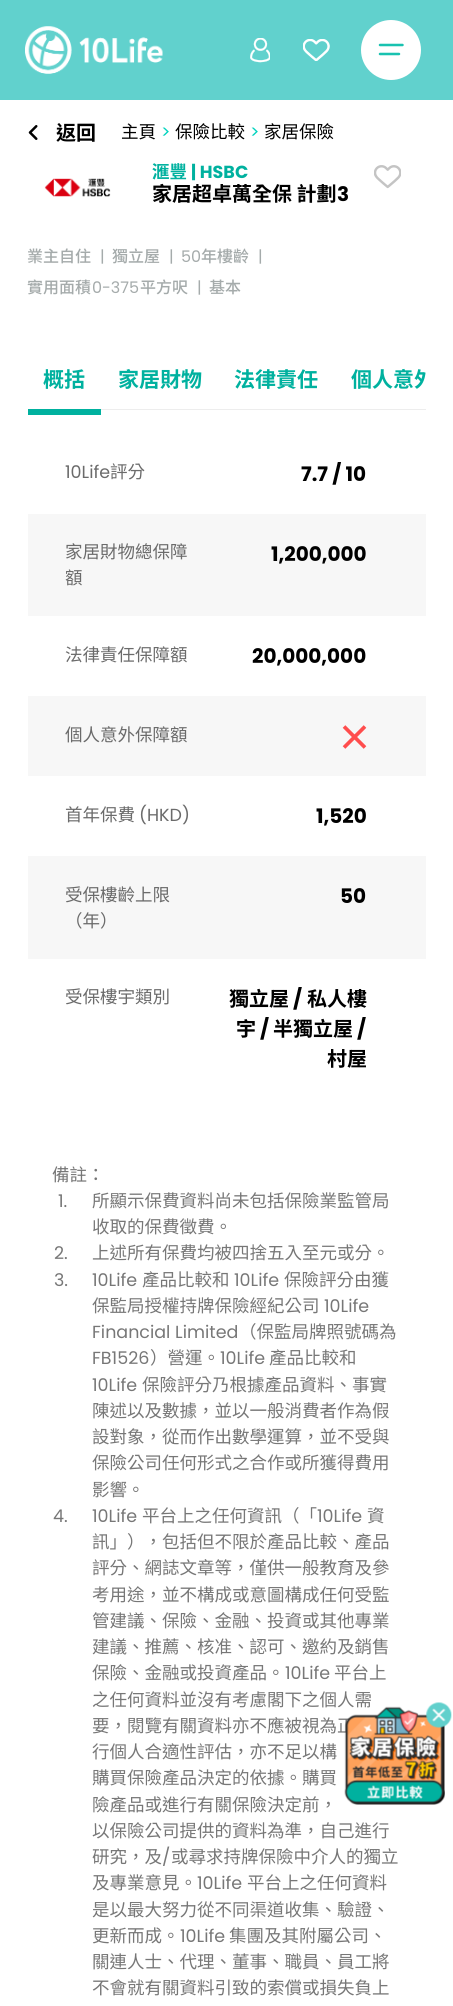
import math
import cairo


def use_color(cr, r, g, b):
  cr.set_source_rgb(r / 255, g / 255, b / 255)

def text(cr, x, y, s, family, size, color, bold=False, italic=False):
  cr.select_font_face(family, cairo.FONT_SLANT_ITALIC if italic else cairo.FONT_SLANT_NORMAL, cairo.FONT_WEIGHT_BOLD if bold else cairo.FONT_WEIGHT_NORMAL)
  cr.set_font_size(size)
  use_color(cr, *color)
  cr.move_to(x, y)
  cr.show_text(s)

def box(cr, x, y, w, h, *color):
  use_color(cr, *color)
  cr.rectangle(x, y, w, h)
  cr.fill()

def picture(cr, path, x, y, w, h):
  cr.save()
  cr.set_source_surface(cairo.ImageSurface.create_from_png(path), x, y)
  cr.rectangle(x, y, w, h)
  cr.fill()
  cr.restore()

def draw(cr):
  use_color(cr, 255, 255, 255)
  cr.paint()
  box(cr, 0, 0, 453, 100, 97, 209, 205)
  picture(cr, "img_01.png", 25, 26, 138, 48)
  picture(cr, "img_02.png", 250, 38, 20, 25)
  picture(cr, "img_03.png", 303, 39, 27, 22)
  use_color(cr, 255, 255, 255)
  cr.arc(391, 50, 30, 0, 2 * math.pi)
  cr.fill()
  cr.new_path()
  cr.move_to(380, 45)
  cr.line_to(402.5, 45)
  cr.move_to(380, 54)
  cr.line_to(399, 54)
  use_color(cr, 25, 194, 176)
  cr.set_line_width(2.5)
  cr.set_line_cap(cairo.LINE_CAP_ROUND)
  cr.stroke()
  picture(cr, "img_04.png", 28, 125, 10, 15)
  picture(cr, "img_05.png", 44, 178, 67, 19)
  picture(cr, "img_06.png", 374, 165, 27, 24)
  box(cr, 28, 409, 73, 6, 0, 177, 159)
  box(cr, 101, 409, 325, 1, 237, 237, 237)
  box(cr, 28, 514, 398, 102, 247, 247, 247)
  box(cr, 28, 696, 398, 80, 247, 247, 247)
  cr.new_path()
  cr.move_to(344, 747.5)
  cr.line_to(365, 726.5)
  cr.move_to(365, 747.5)
  cr.line_to(344, 726.5)
  use_color(cr, 255, 77, 77)
  cr.set_line_width(3.7)
  cr.set_line_cap(cairo.LINE_CAP_BUTT)
  cr.stroke()
  box(cr, 28, 856, 398, 103, 247, 247, 247)
  text(cr, 56, 140, "返回", "Noto Sans TC", 20, (0, 0, 0), bold=True)
  text(cr, 121, 138, "主頁", "Noto Sans TC", 17.5, (0, 0, 0))
  text(cr, 161, 138, ">", "Poppins", 17.5, (0, 211, 190))
  text(cr, 175, 138, "保險比較", "Noto Sans TC", 17.5, (0, 0, 0))
  text(cr, 250, 138, ">", "Poppins", 17.5, (0, 211, 190))
  text(cr, 264, 138, "家居保險", "Noto Sans TC", 17.5, (0, 0, 0))
  text(cr, 152, 178, "滙豐", "Noto Sans TC", 17.5, (0, 177, 159), bold=True)
  text(cr, 191, 178, "| HSBC", "Poppins", 17.5, (0, 177, 159), bold=True)
  text(cr, 152, 201, "家居超卓萬全保 計劃", "Noto Sans TC", 20, (0, 0, 0), bold=True)
  text(cr, 337, 201, "3", "Poppins", 20, (0, 0, 0), bold=True)
  text(cr, 27, 262, "業主自住", "Noto Sans TC Medium", 16, (165, 171, 171))
  text(cr, 100, 262, "|", "Poppins", 16, (165, 171, 171))
  text(cr, 112, 262, "獨立屋", "Noto Sans TC Medium", 16, (165, 171, 171))
  text(cr, 169, 262, "|", "Poppins", 16, (165, 171, 171))
  text(cr, 181, 262, "50", "Poppins", 16, (165, 171, 171))
  text(cr, 201, 262, "年樓齡", "Noto Sans TC Medium", 16, (165, 171, 171))
  text(cr, 258, 262, "|", "Poppins", 16, (165, 171, 171))
  text(cr, 27, 293, "實用面積", "Noto Sans TC Medium", 16, (165, 171, 171))
  text(cr, 92, 293, "0-375", "Poppins", 16, (165, 171, 171))
  text(cr, 140, 293, "平方呎", "Noto Sans TC Medium", 16, (165, 171, 171))
  text(cr, 197, 293, "|", "Poppins", 16, (165, 171, 171))
  text(cr, 209, 293, "基本", "Noto Sans TC Medium", 16, (165, 171, 171))
  text(cr, 43, 387, "概括", "Noto Sans TC", 21, (0, 177, 159), bold=True)
  text(cr, 118, 387, "家居財物", "Noto Sans TC", 21, (0, 177, 159), bold=True)
  text(cr, 234, 387, "法律責任", "Noto Sans TC", 21, (0, 177, 159), bold=True)
  cr.save()
  cr.rectangle(28, 346, 398, 69)
  cr.clip()
  text(cr, 351, 387, "個人意外", "Noto Sans TC", 21, (0, 177, 159), bold=True)
  cr.restore()
  text(cr, 65, 478, "10Life", "Poppins", 17.5, (107, 107, 107))
  text(cr, 110, 478, "評分", "Noto Sans TC", 17.5, (107, 107, 107))
  text(cr, 301, 481, "7.7 / 10", "Poppins", 20, (0, 0, 0), bold=True)
  text(cr, 65, 558, "家居財物總保障", "Noto Sans TC", 17.5, (107, 107, 107))
  text(cr, 65, 584, "額", "Noto Sans TC", 17.5, (107, 107, 107))
  text(cr, 271, 561, "1,200,000", "Poppins", 20, (0, 0, 0), bold=True)
  text(cr, 65, 661, "法律責任保障額", "Noto Sans TC", 17.5, (107, 107, 107))
  text(cr, 252, 663, "20,000,000", "Poppins", 20, (0, 0, 0), bold=True)
  text(cr, 65, 741, "個人意外保障額", "Noto Sans TC", 17.5, (107, 107, 107))
  text(cr, 65, 821, "首年保費", "Noto Sans TC", 17.5, (107, 107, 107))
  text(cr, 139, 821, "(HKD)", "Poppins", 17.5, (107, 107, 107))
  text(cr, 316, 823, "1,520", "Poppins", 20, (0, 0, 0), bold=True)
  text(cr, 65, 901, "受保樓齡上限", "Noto Sans TC", 17.5, (107, 107, 107))
  text(cr, 65, 927, "（年）", "Noto Sans TC", 17.5, (107, 107, 107))
  text(cr, 340, 903, "50", "Poppins", 20, (0, 0, 0), bold=True)
  text(cr, 65, 1003, "受保樓宇類別", "Noto Sans TC", 17.5, (107, 107, 107))
  text(cr, 229, 1006, "獨立屋", "Noto Sans TC", 20, (0, 0, 0), bold=True)
  text(cr, 293, 1006, "/", "Poppins", 20, (0, 0, 0), bold=True)
  text(cr, 307, 1006, "私人樓", "Noto Sans TC", 20, (0, 0, 0), bold=True)
  text(cr, 236, 1036, "宇", "Noto Sans TC", 20, (0, 0, 0), bold=True)
  text(cr, 260, 1036, "/", "Poppins", 20, (0, 0, 0), bold=True)
  text(cr, 273, 1036, "半獨立屋", "Noto Sans TC", 20, (0, 0, 0), bold=True)
  text(cr, 357, 1036, "/", "Poppins", 20, (0, 0, 0), bold=True)
  text(cr, 327, 1066, "村屋", "Noto Sans TC", 20, (0, 0, 0), bold=True)
  text(cr, 52, 1181, "備註：", "Noto Sans TC", 17.5, (119, 119, 119))
  text(cr, 58, 1207, "1.", "Poppins", 17.5, (119, 119, 119))
  text(cr, 92, 1207, "所顯示保費資料尚未包括保險業監管局", "Noto Sans TC", 17.5, (119, 119, 119))
  text(cr, 92, 1233, "收取的保費徵費。", "Noto Sans TC", 17.5, (119, 119, 119))
  text(cr, 54, 1259, "2.", "Poppins", 17.5, (119, 119, 119))
  text(cr, 92, 1259, "上述所有保費均被四捨五入至元或分。", "Noto Sans TC", 17.5, (119, 119, 119))
  text(cr, 54, 1286, "3.", "Poppins", 17.5, (119, 119, 119))
  text(cr, 92, 1286, "10Life", "Poppins", 17.5, (119, 119, 119))
  text(cr, 142, 1286, "產品比較和", "Noto Sans TC", 17.5, (119, 119, 119))
  text(cr, 234, 1286, "10Life", "Poppins", 17.5, (119, 119, 119))
  text(cr, 284, 1286, "保險評分由獲", "Noto Sans TC", 17.5, (119, 119, 119))
  text(cr, 92, 1312, "保監局授權持牌保險經紀公司", "Noto Sans TC", 17.5, (119, 119, 119))
  text(cr, 324, 1312, "10Life", "Poppins", 17.5, (119, 119, 119))
  text(cr, 92, 1338, "Financial Limited", "Poppins", 17.5, (119, 119, 119))
  text(cr, 239, 1338, "（保監局牌照號碼為", "Noto Sans TC", 17.5, (119, 119, 119))
  text(cr, 92, 1364, "FB1526", "Poppins", 17.5, (119, 119, 119))
  text(cr, 150, 1364, "）營運。", "Noto Sans TC", 17.5, (119, 119, 119))
  text(cr, 220, 1364, "10Life", "Poppins", 17.5, (119, 119, 119))
  text(cr, 269, 1364, "產品比較和", "Noto Sans TC", 17.5, (119, 119, 119))
  text(cr, 92, 1391, "10Life", "Poppins", 17.5, (119, 119, 119))
  text(cr, 142, 1391, "保險評分乃根據產品資料、事實", "Noto Sans TC", 17.5, (119, 119, 119))
  text(cr, 92, 1417, "陳述以及數據，並以一般消費者作為假", "Noto Sans TC", 17.5, (119, 119, 119))
  text(cr, 92, 1443, "設對象，從而作出數學運算，並不受與", "Noto Sans TC", 17.5, (119, 119, 119))
  text(cr, 92, 1469, "保險公司任何形式之合作或所獲得費用", "Noto Sans TC", 17.5, (119, 119, 119))
  text(cr, 92, 1496, "影響。", "Noto Sans TC", 17.5, (119, 119, 119))
  text(cr, 53, 1522, "4.", "Poppins", 17.5, (119, 119, 119))
  text(cr, 92, 1522, "10Life", "Poppins", 17.5, (119, 119, 119))
  text(cr, 142, 1522, "平台上之任何資訊（「", "Noto Sans TC", 17.5, (119, 119, 119))
  text(cr, 317, 1522, "10Life", "Poppins", 17.5, (119, 119, 119))
  text(cr, 367, 1522, "資", "Noto Sans TC", 17.5, (119, 119, 119))
  text(cr, 92, 1548, "訊」），包括但不限於產品比較、產品", "Noto Sans TC", 17.5, (119, 119, 119))
  text(cr, 92, 1574, "評分、網誌文章等，僅供一般教育及參", "Noto Sans TC", 17.5, (119, 119, 119))
  text(cr, 92, 1601, "考用途，並不構成或意圖構成任何受監", "Noto Sans TC", 17.5, (119, 119, 119))
  text(cr, 92, 1627, "管建議、保險、金融、投資或其他專業", "Noto Sans TC", 17.5, (119, 119, 119))
  text(cr, 92, 1653, "建議、推薦、核准、認可、邀約及銷售", "Noto Sans TC", 17.5, (119, 119, 119))
  text(cr, 92, 1679, "保險、金融或投資產品。", "Noto Sans TC", 17.5, (119, 119, 119))
  text(cr, 285, 1679, "10Life", "Poppins", 17.5, (119, 119, 119))
  text(cr, 334, 1679, "平台上", "Noto Sans TC", 17.5, (119, 119, 119))
  text(cr, 92, 1706, "之任何資料並沒有考慮閣下之個人需", "Noto Sans TC", 17.5, (119, 119, 119))
  text(cr, 92, 1732, "要，閱覽有關資料亦不應被視為正", "Noto Sans TC", 17.5, (119, 119, 119))
  text(cr, 92, 1758, "行個人合適性評估，亦不足以構", "Noto Sans TC", 17.5, (119, 119, 119))
  text(cr, 92, 1784, "購買保險產品決定的依據。購買", "Noto Sans TC", 17.5, (119, 119, 119))
  text(cr, 92, 1811, "險產品或進行有關保險決定前，", "Noto Sans TC", 17.5, (119, 119, 119))
  text(cr, 92, 1837, "以保險公司提供的資料為準，自己進行", "Noto Sans TC", 17.5, (119, 119, 119))
  text(cr, 92, 1863, "研究，及", "Noto Sans TC", 17.5, (119, 119, 119))
  text(cr, 162, 1863, "/", "Poppins", 17.5, (119, 119, 119))
  text(cr, 171, 1863, "或尋求持牌保險中介人的獨立", "Noto Sans TC", 17.5, (119, 119, 119))
  text(cr, 92, 1889, "及專業意見。", "Noto Sans TC", 17.5, (119, 119, 119))
  text(cr, 197, 1889, "10Life", "Poppins", 17.5, (119, 119, 119))
  text(cr, 247, 1889, "平台上之任何資料", "Noto Sans TC", 17.5, (119, 119, 119))
  text(cr, 92, 1916, "是以最大努力從不同渠道收集、驗證、", "Noto Sans TC", 17.5, (119, 119, 119))
  text(cr, 92, 1942, "更新而成。", "Noto Sans TC", 17.5, (119, 119, 119))
  text(cr, 180, 1942, "10Life", "Poppins", 17.5, (119, 119, 119))
  text(cr, 229, 1942, "集團及其附屬公司、", "Noto Sans TC", 17.5, (119, 119, 119))
  text(cr, 92, 1968, "關連人士、代理、董事、職員、員工將", "Noto Sans TC", 17.5, (119, 119, 119))
  text(cr, 92, 1994, "不會就有關資料引致的索償或損失負上", "Noto Sans TC", 17.5, (119, 119, 119))
  picture(cr, "img_08.png", 344, 1706, 101, 99)
  picture(cr, "img_07.png", 426, 1702, 26, 26)


surface = cairo.ImageSurface(cairo.FORMAT_RGB24, 453, 2006)
cr = cairo.Context(surface)
options = cairo.FontOptions()
options.set_hint_metrics(cairo.HINT_METRICS_OFF)
options.set_hint_style(cairo.HINT_STYLE_NONE)
cr.set_font_options(options)
cr.set_miter_limit(4)
draw(cr)
surface.write_to_png("out.png")
